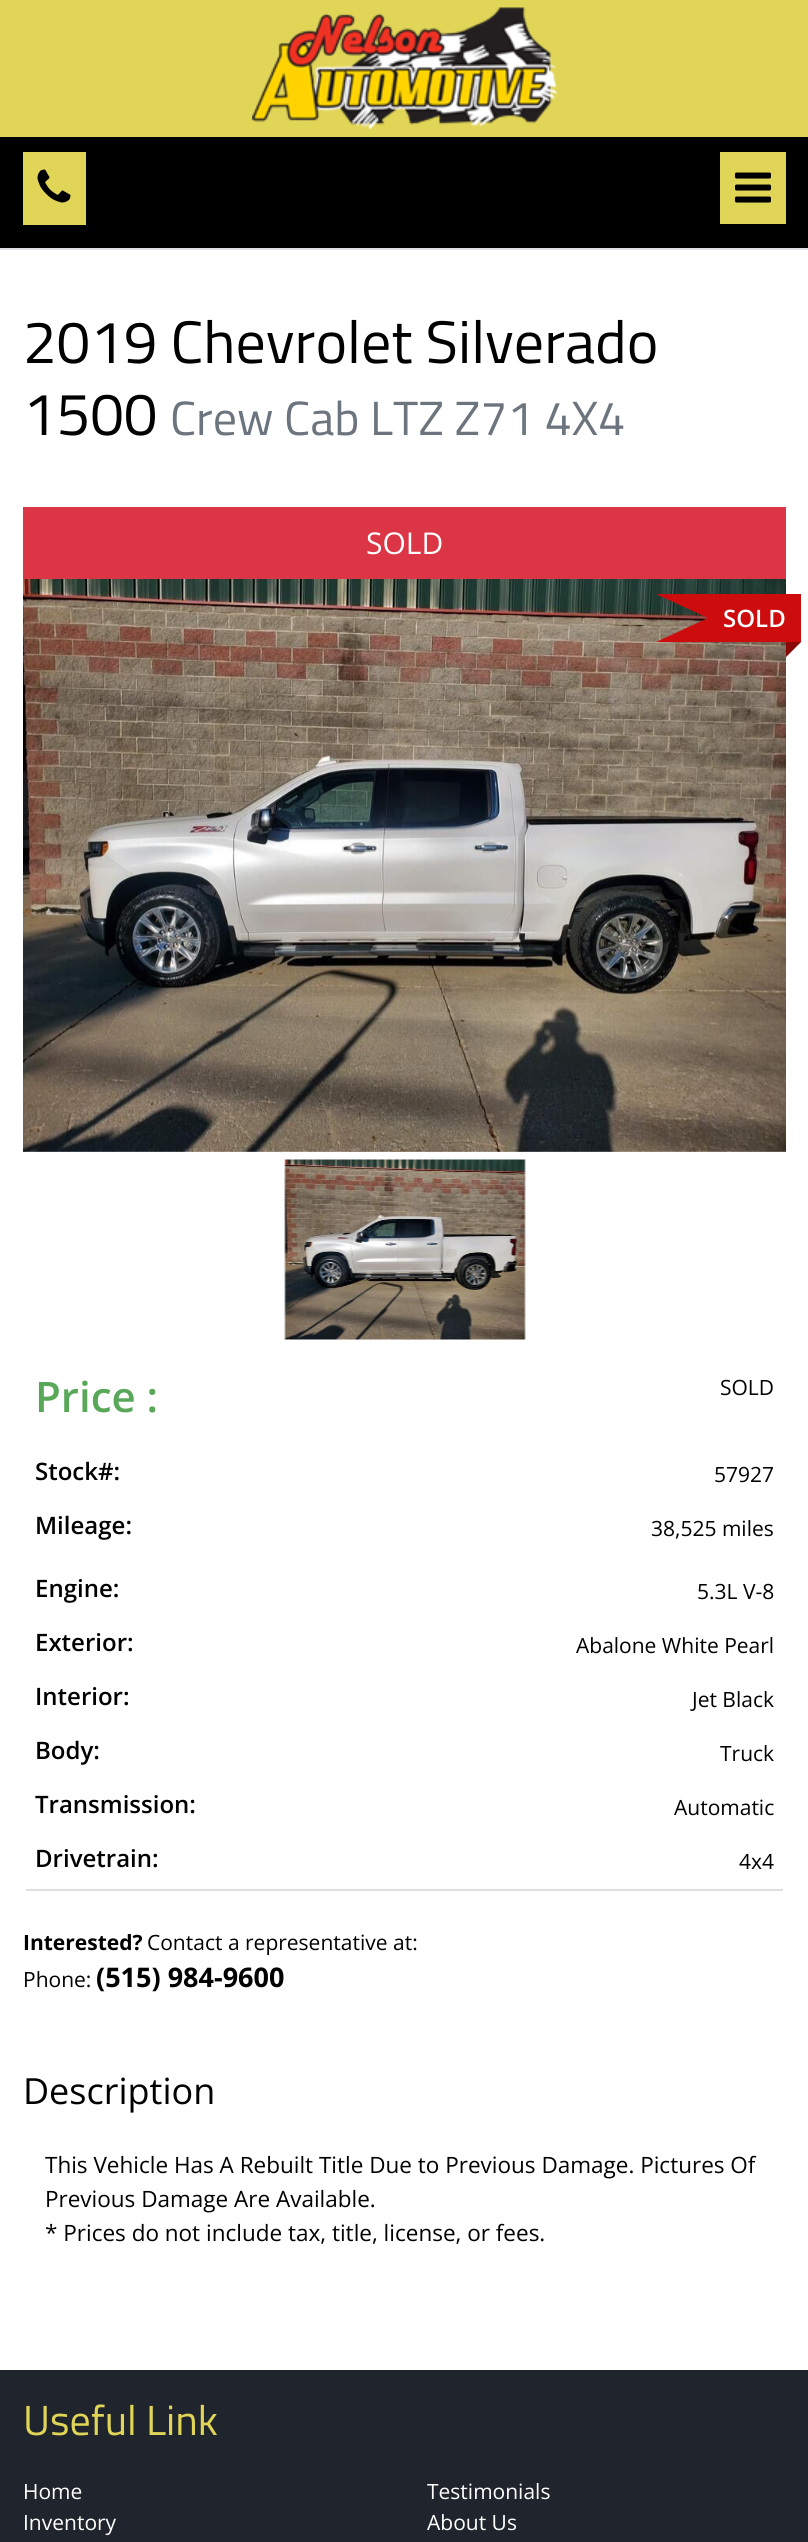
import math
import cairo


def use_color(cr, r, g, b):
  cr.set_source_rgb(r / 255, g / 255, b / 255)

def text(cr, x, y, s, family, size, color, bold=False, italic=False):
  cr.select_font_face(family, cairo.FONT_SLANT_ITALIC if italic else cairo.FONT_SLANT_NORMAL, cairo.FONT_WEIGHT_BOLD if bold else cairo.FONT_WEIGHT_NORMAL)
  cr.set_font_size(size)
  use_color(cr, *color)
  cr.move_to(x, y)
  cr.show_text(s)

def box(cr, x, y, w, h, *color):
  use_color(cr, *color)
  cr.rectangle(x, y, w, h)
  cr.fill()

def picture(cr, path, x, y, w, h):
  cr.save()
  cr.set_source_surface(cairo.ImageSurface.create_from_png(path), x, y)
  cr.rectangle(x, y, w, h)
  cr.fill()
  cr.restore()

def draw(cr):
  use_color(cr, 255, 255, 255)
  cr.paint()
  box(cr, 0, 137, 808, 111, 0, 0, 0)
  box(cr, 0, 248, 808, 2, 222, 226, 230)
  box(cr, 0, 0, 808, 137, 225, 213, 88)
  picture(cr, "img_01.png", 252, 7, 306, 122)
  box(cr, 23, 152, 63, 73, 225, 213, 88)
  picture(cr, "img_02.png", 37, 169, 34, 34)
  box(cr, 720, 152, 66, 72, 225, 213, 88)
  picture(cr, "img_03.png", 735, 172, 36, 31)
  box(cr, 23, 507, 763, 72, 220, 53, 69)
  picture(cr, "img_04.png", 23, 579, 763, 573)
  use_color(cr, 205, 13, 13)
  cr.new_path()
  cr.move_to(656, 594)
  cr.line_to(801, 594)
  cr.line_to(801, 642)
  cr.line_to(786, 657)
  cr.line_to(786, 642)
  cr.line_to(656, 642)
  cr.line_to(708, 618)
  cr.close_path()
  cr.fill()
  cr.set_source_rgba(0, 0, 0, 0.33)
  cr.new_path()
  cr.move_to(786, 657)
  cr.line_to(801, 642)
  cr.line_to(786, 642)
  cr.close_path()
  cr.fill()
  picture(cr, "img_05.png", 284, 1159, 242, 181)
  box(cr, 26, 1889, 757, 2, 223, 223, 223)
  box(cr, 0, 2370, 808, 172, 32, 36, 44)
  text(cr, 23, 363, "2019 Chevrolet Silverado", "Titillium Web", 60, (0, 0, 0))
  text(cr, 23, 435, "1500", "Titillium Web", 60, (0, 0, 0))
  text(cr, 170, 435, "Crew Cab LTZ Z71 4X4", "Titillium Web", 48, (108, 117, 125))
  text(cr, 366, 554, "SOLD", "Open Sans", 30, (255, 255, 255))
  text(cr, 723, 627, "SOLD", "Open Sans SemiBold", 24, (255, 255, 255))
  text(cr, 35, 1412, "Price :", "Open Sans SemiBold", 42, (89, 167, 89))
  text(cr, 720, 1395, "SOLD", "Open Sans", 21, (0, 0, 0))
  text(cr, 35, 1480, "Stock#:", "Open Sans SemiBold", 24, (0, 0, 0))
  text(cr, 714, 1482, "57927", "Open Sans", 21, (0, 0, 0))
  text(cr, 35, 1534, "Mileage:", "Open Sans SemiBold", 24, (0, 0, 0))
  text(cr, 651, 1536, "38,525 miles", "Open Sans", 21, (0, 0, 0))
  text(cr, 35, 1597, "Engine:", "Open Sans SemiBold", 24, (0, 0, 0))
  text(cr, 697, 1599, "5.3L V-8", "Open Sans", 21, (0, 0, 0))
  text(cr, 35, 1651, "Exterior:", "Open Sans SemiBold", 24, (0, 0, 0))
  text(cr, 576, 1653, "Abalone White Pearl", "Open Sans", 21, (0, 0, 0))
  text(cr, 35, 1705, "Interior:", "Open Sans SemiBold", 24, (0, 0, 0))
  text(cr, 692, 1707, "Jet Black", "Open Sans", 21, (0, 0, 0))
  text(cr, 35, 1759, "Body:", "Open Sans SemiBold", 24, (0, 0, 0))
  text(cr, 720, 1761, "Truck", "Open Sans", 21, (0, 0, 0))
  text(cr, 35, 1813, "Transmission:", "Open Sans SemiBold", 24, (0, 0, 0))
  text(cr, 674, 1815, "Automatic", "Open Sans", 21, (0, 0, 0))
  text(cr, 35, 1867, "Drivetrain:", "Open Sans SemiBold", 24, (0, 0, 0))
  text(cr, 739, 1869, "4x4", "Open Sans", 21, (0, 0, 0))
  text(cr, 23, 1950, "Interested?", "Open Sans", 21, (0, 0, 0), bold=True)
  text(cr, 147, 1950, "Contact a representative at:", "Open Sans", 21, (0, 0, 0))
  text(cr, 23, 1987, "Phone:", "Open Sans", 21, (0, 0, 0))
  text(cr, 96, 1987, "(515) 984-9600", "Open Sans", 27, (0, 0, 0), bold=True)
  text(cr, 23, 2104, "Description", "Open Sans", 36, (0, 0, 0))
  text(cr, 45, 2173, "This Vehicle Has A Rebuilt Title Due to Previous Damage. Pictures Of", "Open Sans", 22.5, (0, 0, 0))
  text(cr, 45, 2207, "Previous Damage Are Available.", "Open Sans", 22.5, (0, 0, 0))
  text(cr, 45, 2241, "* Prices do not include tax, title, license, or fees.", "Open Sans", 22.5, (0, 0, 0))
  text(cr, 23, 2435, "Useful Link", "Titillium Web", 42, (225, 213, 88))
  text(cr, 23, 2499, "Home", "Open Sans", 21, (255, 255, 255))
  text(cr, 23, 2530, "Inventory", "Open Sans", 21, (255, 255, 255))
  text(cr, 427, 2499, "Testimonials", "Open Sans", 21, (255, 255, 255))
  text(cr, 427, 2530, "About Us", "Open Sans", 21, (255, 255, 255))


surface = cairo.ImageSurface(cairo.FORMAT_RGB24, 808, 2542)
cr = cairo.Context(surface)
options = cairo.FontOptions()
options.set_hint_metrics(cairo.HINT_METRICS_OFF)
options.set_hint_style(cairo.HINT_STYLE_NONE)
cr.set_font_options(options)
cr.set_miter_limit(4)
draw(cr)
surface.write_to_png("out.png")
